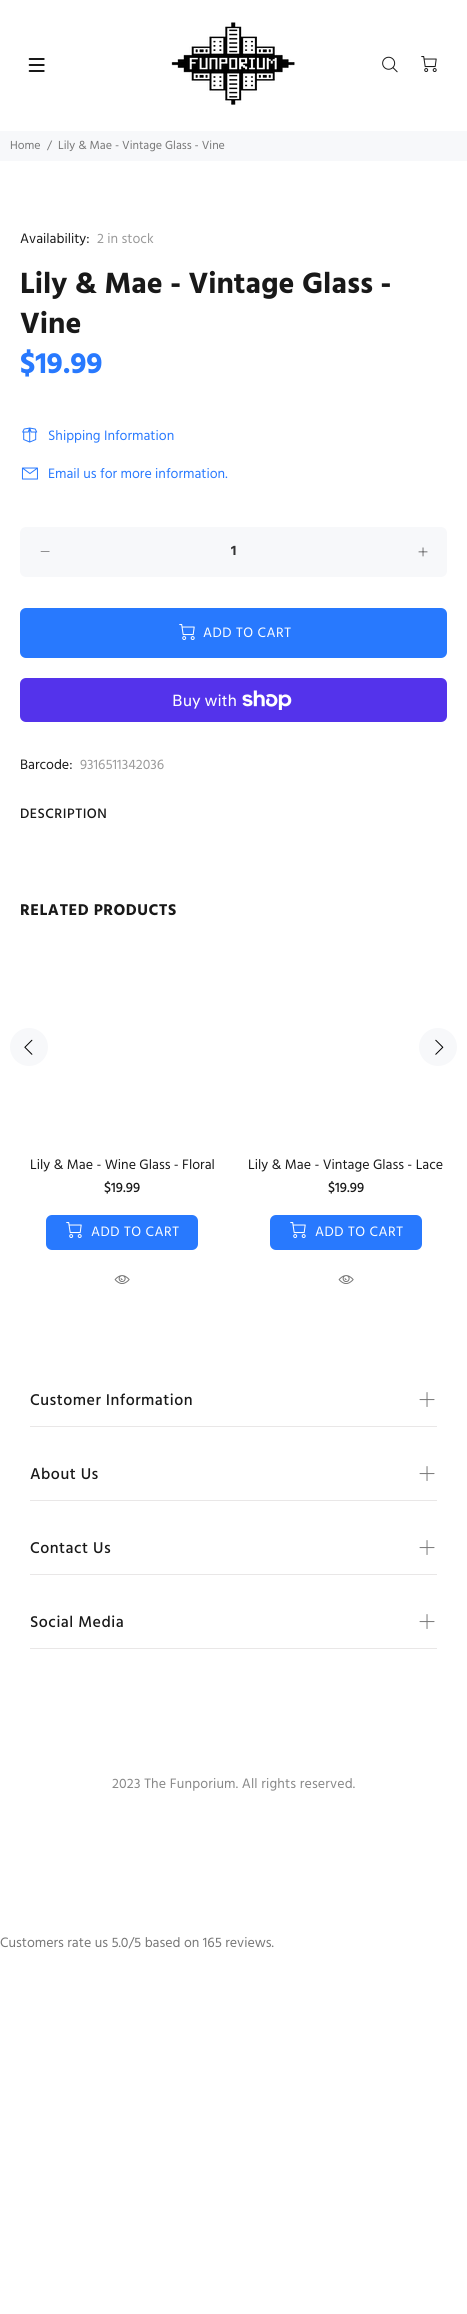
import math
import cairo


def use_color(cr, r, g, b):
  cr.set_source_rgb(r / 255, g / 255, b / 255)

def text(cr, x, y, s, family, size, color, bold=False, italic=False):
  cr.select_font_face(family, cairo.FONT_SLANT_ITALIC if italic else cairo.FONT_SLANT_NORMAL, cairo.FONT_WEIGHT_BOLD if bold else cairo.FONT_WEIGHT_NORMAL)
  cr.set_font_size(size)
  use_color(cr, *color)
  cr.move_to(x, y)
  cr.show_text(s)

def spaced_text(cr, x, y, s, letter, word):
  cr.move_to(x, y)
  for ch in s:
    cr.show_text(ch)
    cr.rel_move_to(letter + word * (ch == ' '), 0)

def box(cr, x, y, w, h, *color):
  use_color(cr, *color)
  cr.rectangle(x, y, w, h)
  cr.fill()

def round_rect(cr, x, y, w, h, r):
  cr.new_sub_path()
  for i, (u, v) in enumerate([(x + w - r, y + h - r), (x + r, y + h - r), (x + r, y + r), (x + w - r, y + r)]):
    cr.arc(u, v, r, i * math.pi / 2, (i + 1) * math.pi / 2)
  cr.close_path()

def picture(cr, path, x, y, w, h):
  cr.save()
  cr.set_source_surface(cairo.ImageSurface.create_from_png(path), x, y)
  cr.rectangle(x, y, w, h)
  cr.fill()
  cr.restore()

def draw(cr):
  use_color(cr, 255, 255, 255)
  cr.paint()
  picture(cr, "img_01.png", 28, 58, 17, 14)
  picture(cr, "img_02.png", 171, 22, 124, 83)
  picture(cr, "img_03.png", 382, 56, 16, 17)
  picture(cr, "img_04.png", 421, 56, 16, 16)
  box(cr, 0, 131, 467, 30, 247, 248, 250)
  picture(cr, "img_05.png", 22, 427, 16, 16)
  picture(cr, "img_06.png", 21, 467, 17, 13)
  round_rect(cr, 20, 527, 427, 50, 6)
  cr.fill()
  use_color(cr, 25, 25, 25)
  cr.new_path()
  cr.move_to(49.5, 551.5)
  cr.line_to(49.5, 552)
  cr.line_to(40.5, 552)
  cr.line_to(41, 551.5)
  cr.close_path()
  cr.fill()
  picture(cr, "img_07.png", 418, 547, 10, 10)
  use_color(cr, 40, 121, 254)
  round_rect(cr, 20, 608, 427, 50, 6)
  cr.fill()
  picture(cr, "img_08.png", 179, 624, 16, 16)
  use_color(cr, 84, 51, 235)
  round_rect(cr, 20, 678, 427, 44, 6)
  cr.fill()
  picture(cr, "img_09.png", 242, 690, 50, 20)
  use_color(cr, 247, 248, 250)
  cr.arc(29, 1047, 19, 0, 2 * math.pi)
  cr.fill()
  picture(cr, "img_10.png", 24, 1039, 9, 16)
  cr.arc(438, 1047, 19, 0, 2 * math.pi)
  cr.fill()
  picture(cr, "img_11.png", 435, 1039, 9, 16)
  use_color(cr, 40, 121, 254)
  round_rect(cr, 46, 1215, 152, 35, 6)
  cr.fill()
  picture(cr, "img_08.png", 66, 1222, 16, 16)
  picture(cr, "img_12.png", 114, 1275, 16, 9)
  round_rect(cr, 270, 1215, 152, 35, 6)
  cr.fill()
  picture(cr, "img_08.png", 290, 1222, 16, 16)
  picture(cr, "img_12.png", 338, 1275, 16, 9)
  box(cr, 30, 1426, 407, 1, 233, 231, 231)
  picture(cr, "img_13.png", 419, 1392, 16, 15)
  box(cr, 30, 1500, 407, 1, 233, 231, 231)
  picture(cr, "img_13.png", 419, 1466, 16, 15)
  box(cr, 30, 1574, 407, 1, 233, 231, 231)
  picture(cr, "img_13.png", 419, 1540, 16, 15)
  box(cr, 30, 1648, 407, 1, 233, 231, 231)
  picture(cr, "img_13.png", 419, 1614, 16, 15)
  text(cr, 10, 149, "Home", "Hind", 12, (119, 119, 119))
  text(cr, 47, 149, "/", "Hind", 12, (119, 119, 119))
  text(cr, 58, 149, "Lily & Mae - Vintage Glass - Vine", "Hind", 12, (119, 119, 119))
  text(cr, 20, 243, "Availability:", "Hind", 14, (25, 25, 25))
  text(cr, 97, 243, "2 in stock", "Hind", 14, (153, 153, 153))
  text(cr, 20, 293, "Lily & Mae - Vintage Glass -", "Hind", 30, (25, 25, 25), bold=True)
  text(cr, 20, 333, "Vine", "Hind", 30, (25, 25, 25), bold=True)
  text(cr, 20, 373, "$19.99", "Hind", 30, (40, 121, 254), bold=True)
  text(cr, 48, 440, "Shipping Information", "Hind", 14, (40, 121, 254))
  text(cr, 48, 478, "Email us for more information.", "Hind", 14, (40, 121, 254))
  text(cr, 231, 555, "1", "Hind", 14, (51, 51, 51), bold=True)
  cr.select_font_face("Hind")
  use_color(cr, 255, 255, 255)
  spaced_text(cr, 203, 637, "ADD TO CART", 0.5, 0)
  text(cr, 172, 706, "Buy with", "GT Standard", 16, (255, 255, 255))
  text(cr, 20, 769, "Barcode:", "Hind", 14, (25, 25, 25))
  text(cr, 80, 769, "9316511342036", "Hind", 14, (153, 153, 153))
  cr.select_font_face("Hind Medium")
  use_color(cr, 25, 25, 25)
  spaced_text(cr, 20, 818, "DESCRIPTION", 0.5, 0)
  cr.select_font_face("Hind", cairo.FONT_SLANT_NORMAL, cairo.FONT_WEIGHT_BOLD)
  cr.set_font_size(16)
  spaced_text(cr, 20, 915, "RELATED PRODUCTS", 0.5, 0)
  text(cr, 30, 1169, "Lily & Mae - Wine Glass - Floral", "Hind", 14, (25, 25, 25))
  text(cr, 104, 1192, "$19.99", "Hind Medium", 14, (25, 25, 25))
  cr.select_font_face("Hind")
  use_color(cr, 255, 255, 255)
  spaced_text(cr, 91, 1236, "ADD TO CART", 0.5, 0)
  text(cr, 248, 1169, "Lily & Mae - Vintage Glass - Lace", "Hind", 14, (25, 25, 25))
  text(cr, 328, 1192, "$19.99", "Hind Medium", 14, (25, 25, 25))
  cr.select_font_face("Hind")
  use_color(cr, 255, 255, 255)
  spaced_text(cr, 315, 1236, "ADD TO CART", 0.5, 0)
  cr.select_font_face("Hind Medium")
  cr.set_font_size(16)
  use_color(cr, 25, 25, 25)
  spaced_text(cr, 30, 1405, "Customer Information", 0.5, 0)
  spaced_text(cr, 30, 1479, "About Us", 0.5, 0)
  spaced_text(cr, 30, 1553, "Contact Us", 0.5, 0)
  spaced_text(cr, 30, 1627, "Social Media", 0.5, 0)
  cr.select_font_face("Hind")
  cr.set_font_size(14)
  use_color(cr, 136, 136, 136)
  spaced_text(cr, 112, 1788, "2023 The Funporium. All rights reserved.", 0.15, 0)
  text(cr, 0, 1947, "Customers rate us 5.0/5 based on 165 reviews.", "Hind", 14, (119, 119, 119))


surface = cairo.ImageSurface(cairo.FORMAT_RGB24, 467, 2314)
cr = cairo.Context(surface)
options = cairo.FontOptions()
options.set_hint_metrics(cairo.HINT_METRICS_OFF)
options.set_hint_style(cairo.HINT_STYLE_NONE)
cr.set_font_options(options)
cr.set_miter_limit(4)
draw(cr)
surface.write_to_png("out.png")
